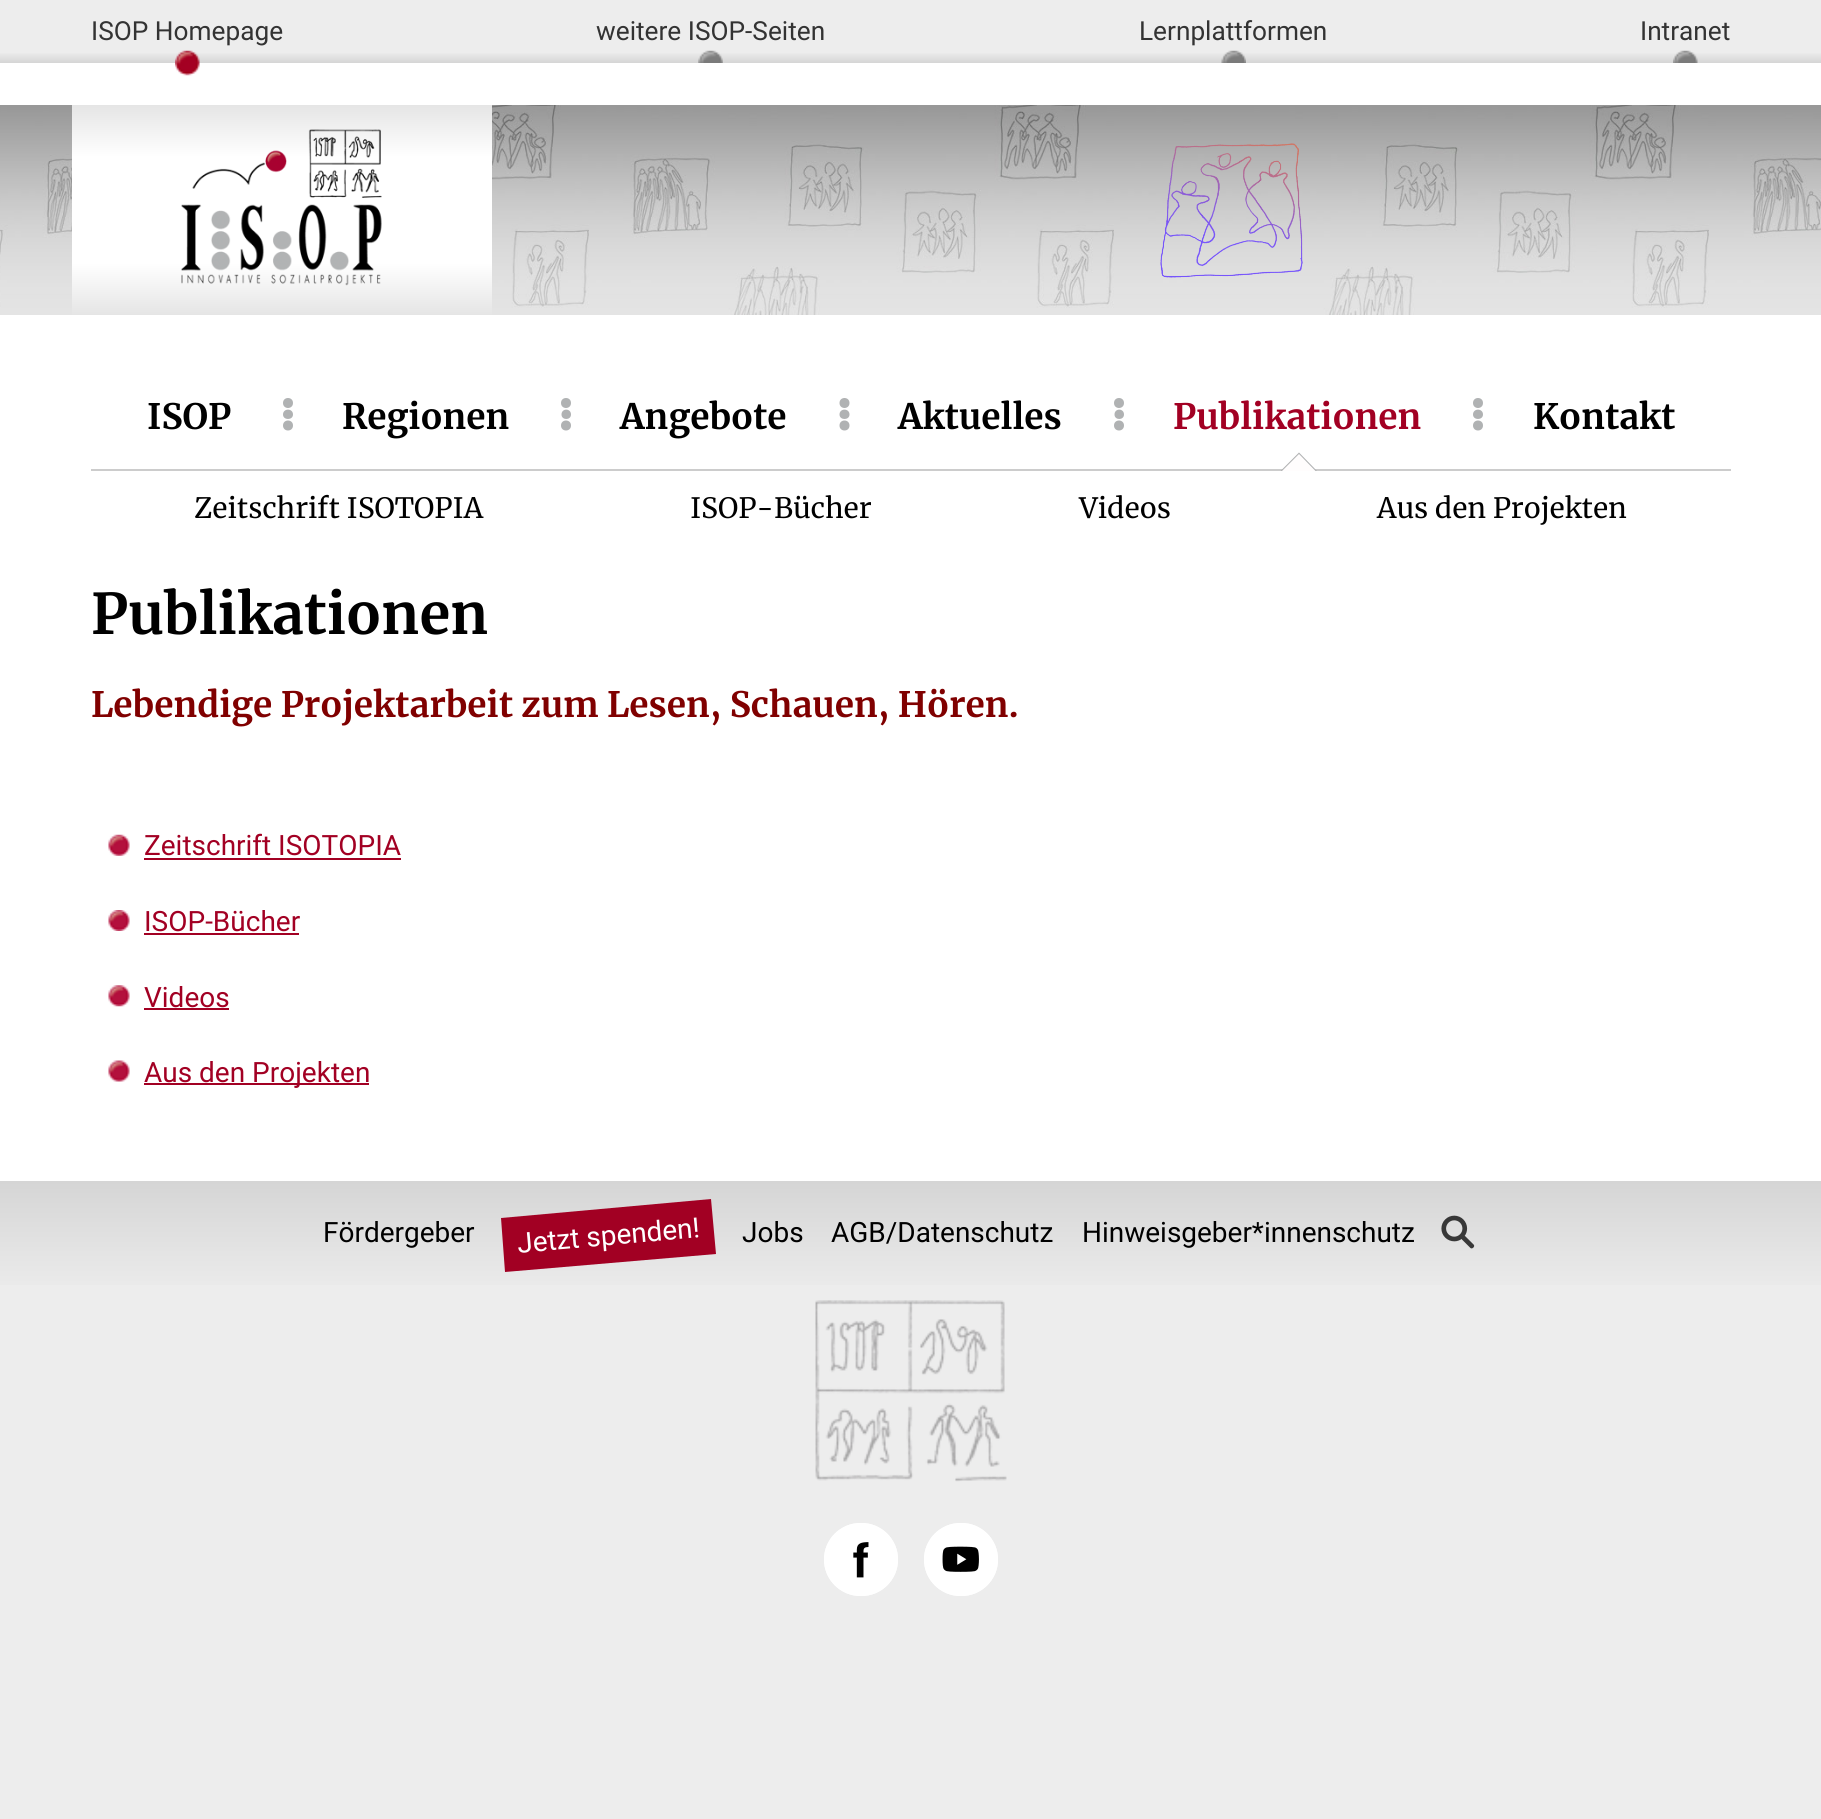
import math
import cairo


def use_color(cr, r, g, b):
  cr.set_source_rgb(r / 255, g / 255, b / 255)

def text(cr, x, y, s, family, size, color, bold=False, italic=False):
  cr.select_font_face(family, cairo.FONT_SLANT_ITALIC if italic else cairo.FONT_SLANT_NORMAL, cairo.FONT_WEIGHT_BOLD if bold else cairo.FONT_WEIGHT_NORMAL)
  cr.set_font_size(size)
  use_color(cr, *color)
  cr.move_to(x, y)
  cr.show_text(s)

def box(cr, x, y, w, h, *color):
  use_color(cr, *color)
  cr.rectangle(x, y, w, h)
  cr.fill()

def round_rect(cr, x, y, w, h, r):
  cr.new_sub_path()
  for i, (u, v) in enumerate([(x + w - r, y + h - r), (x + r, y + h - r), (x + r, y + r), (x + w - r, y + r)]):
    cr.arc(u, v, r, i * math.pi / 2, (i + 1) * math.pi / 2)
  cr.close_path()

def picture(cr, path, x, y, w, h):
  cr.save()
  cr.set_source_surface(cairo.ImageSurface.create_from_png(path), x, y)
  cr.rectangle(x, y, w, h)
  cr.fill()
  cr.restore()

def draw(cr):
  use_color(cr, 237, 237, 237)
  cr.paint()
  box(cr, 0, 63, 1821, 1118, 255, 255, 255)
  gradient = cairo.LinearGradient(911, 52, 911, 63)
  gradient.add_color_stop_rgba(0, 0.929, 0.929, 0.929, 1)
  gradient.add_color_stop_rgba(1, 0.835, 0.835, 0.835, 1)
  cr.set_source(gradient)
  cr.rectangle(0, 53, 1821, 10)
  cr.fill()
  picture(cr, "img_01.png", 175, 50, 25, 26)
  picture(cr, "img_02.png", 698, 50, 25, 13)
  picture(cr, "img_03.png", 1221, 50, 25, 13)
  picture(cr, "img_04.png", 1673, 50, 25, 13)
  picture(cr, "img_05.png", 0, 105, 1821, 210)
  gradient = cairo.LinearGradient(282, 105, 282, 315)
  gradient.add_color_stop_rgba(0, 0.898, 0.898, 0.898, 1)
  gradient.add_color_stop_rgba(0.25, 1, 1, 1, 1)
  gradient.add_color_stop_rgba(0.75, 1, 1, 1, 1)
  gradient.add_color_stop_rgba(1, 0.898, 0.898, 0.898, 1)
  cr.set_source(gradient)
  cr.rectangle(72, 105, 420, 210)
  cr.fill()
  picture(cr, "img_06.png", 181, 129, 201, 157)
  picture(cr, "img_07.png", 1160, 143, 143, 135)
  use_color(cr, 176, 178, 179)
  cr.arc(1478, 403, 5, 0, 2 * math.pi)
  cr.fill()
  cr.new_path()
  cr.move_to(1483, 414.5)
  cr.curve_to(1483, 420.5, 1473, 420.5, 1473, 414.5)
  cr.curve_to(1473, 408, 1483, 408, 1483, 414.5)
  cr.close_path()
  cr.fill()
  cr.arc(1478, 425.5, 5, 0, 2 * math.pi)
  cr.fill()
  box(cr, 91, 469, 1640, 2, 204, 204, 204)
  use_color(cr, 176, 178, 179)
  cr.new_path()
  cr.move_to(1317, 471)
  cr.line_to(1299, 452.5)
  cr.line_to(1280.5, 471)
  cr.close_path()
  cr.fill()
  use_color(cr, 255, 253, 253)
  cr.new_path()
  cr.move_to(1315.5, 471)
  cr.line_to(1299, 454)
  cr.line_to(1282, 471)
  cr.close_path()
  cr.fill()
  use_color(cr, 176, 178, 179)
  cr.arc(288, 403, 5, 0, 2 * math.pi)
  cr.fill()
  cr.new_path()
  cr.move_to(293, 414.5)
  cr.curve_to(293, 420.5, 283, 420.5, 283, 414.5)
  cr.curve_to(283, 408, 293, 408, 293, 414.5)
  cr.close_path()
  cr.fill()
  cr.arc(288, 425.5, 5, 0, 2 * math.pi)
  cr.fill()
  cr.arc(566, 403, 5, 0, 2 * math.pi)
  cr.fill()
  cr.new_path()
  cr.move_to(571, 414.5)
  cr.curve_to(571, 420.5, 561.5, 420.5, 561.5, 414.5)
  cr.curve_to(561.5, 408, 571, 408, 571, 414.5)
  cr.close_path()
  cr.fill()
  cr.arc(566, 425.5, 5, 0, 2 * math.pi)
  cr.fill()
  cr.arc(844.5, 403, 5, 0, 2 * math.pi)
  cr.fill()
  cr.new_path()
  cr.move_to(849.5, 414.5)
  cr.curve_to(849.5, 420.5, 839.5, 420.5, 839.5, 414.5)
  cr.curve_to(839.5, 408, 849.5, 408, 849.5, 414.5)
  cr.close_path()
  cr.fill()
  cr.arc(844.5, 425.5, 5, 0, 2 * math.pi)
  cr.fill()
  cr.arc(1119, 403, 5, 0, 2 * math.pi)
  cr.fill()
  cr.new_path()
  cr.move_to(1124, 414.5)
  cr.curve_to(1124, 420.5, 1114.5, 420.5, 1114.5, 414.5)
  cr.curve_to(1114.5, 408, 1124, 408, 1124, 414.5)
  cr.close_path()
  cr.fill()
  cr.arc(1119, 425.5, 5, 0, 2 * math.pi)
  cr.fill()
  picture(cr, "img_08.png", 108, 834, 22, 22)
  box(cr, 144, 858, 257, 2, 162, 0, 35)
  picture(cr, "img_09.png", 108, 910, 22, 21)
  box(cr, 144, 933, 155, 2, 162, 0, 35)
  picture(cr, "img_10.png", 108, 985, 22, 22)
  box(cr, 144, 1008, 85, 2, 162, 0, 35)
  picture(cr, "img_11.png", 108, 1060, 22, 22)
  box(cr, 144, 1083, 225, 2, 162, 0, 35)
  gradient = cairo.LinearGradient(911, 1181, 911, 1292)
  gradient.add_color_stop_rgba(0, 0.835, 0.835, 0.835, 1)
  gradient.add_color_stop_rgba(1, 0.925, 0.925, 0.925, 1)
  cr.set_source(gradient)
  cr.rectangle(0, 1181, 1821, 104)
  cr.fill()
  use_color(cr, 162, 0, 35)
  cr.new_path()
  cr.move_to(501, 1218)
  cr.line_to(711, 1199)
  cr.line_to(716, 1254)
  cr.line_to(505, 1272)
  cr.close_path()
  cr.fill()
  picture(cr, "img_12.png", 1441, 1215, 34, 34)
  picture(cr, "img_13.png", 815, 1300, 192, 182)
  use_color(cr, 255, 255, 255)
  round_rect(cr, 824, 1523, 74, 73, 36.5)
  cr.fill()
  picture(cr, "img_14.png", 853, 1542, 16, 36)
  round_rect(cr, 825, 1524, 72, 71, 35.5)
  cr.stroke()
  round_rect(cr, 924, 1523, 74, 73, 36.5)
  cr.fill()
  picture(cr, "img_15.png", 942, 1546, 37, 26)
  round_rect(cr, 925, 1524, 72, 71, 35.5)
  cr.stroke()
  text(cr, 91, 40, "ISOP Homepage", "Roboto", 26.25, (51, 51, 51))
  text(cr, 596, 40, "weitere ISOP-Seiten", "Roboto", 26.25, (51, 51, 51))
  text(cr, 1139, 40, "Lernplattformen", "Roboto", 26.25, (51, 51, 51))
  text(cr, 1640, 40, "Intranet", "Roboto", 26.25, (51, 51, 51))
  text(cr, 1173, 429, "Publikationen", "Merriweather", 35, (162, 0, 35), bold=True)
  text(cr, 194, 518, "Zeitschrift ISOTOPIA", "Merriweather", 28, (0, 0, 0))
  text(cr, 690, 518, "ISOP-Bücher", "Merriweather", 28, (0, 0, 0))
  text(cr, 1079, 518, "Videos", "Merriweather", 28, (0, 0, 0))
  text(cr, 1377, 518, "Aus den Projekten", "Merriweather", 28, (0, 0, 0))
  text(cr, 147, 429, "ISOP", "Merriweather", 35, (0, 0, 0), bold=True)
  text(cr, 342, 429, "Regionen", "Merriweather", 35, (0, 0, 0), bold=True)
  text(cr, 620, 429, "Angebote", "Merriweather", 35, (0, 0, 0), bold=True)
  text(cr, 898, 429, "Aktuelles", "Merriweather", 35, (0, 0, 0), bold=True)
  text(cr, 1533, 429, "Kontakt", "Merriweather", 35, (0, 0, 0), bold=True)
  text(cr, 91, 634, "Publikationen", "Merriweather", 56, (0, 0, 0), bold=True)
  text(cr, 91, 717, "Lebendige Projektarbeit zum Lesen, Schauen, Hören.", "Merriweather", 35, (128, 0, 0), bold=True)
  text(cr, 144, 855, "Zeitschrift ISOTOPIA", "Roboto", 28, (162, 0, 35))
  text(cr, 144, 931, "ISOP-Bücher", "Roboto", 28, (162, 0, 35))
  text(cr, 144, 1007, "Videos", "Roboto", 28, (162, 0, 35))
  text(cr, 144, 1082, "Aus den Projekten", "Roboto", 28, (162, 0, 35))
  text(cr, 323, 1242, "Fördergeber", "Roboto", 28, (0, 0, 0))
  cr.save()
  cr.translate(518, 1253)
  cr.rotate(-5 * math.pi / 180)
  text(cr, 0, 0, "Jetzt spenden!", "Roboto", 28, (255, 255, 255))
  cr.restore()
  text(cr, 742, 1242, "Jobs", "Roboto", 28, (0, 0, 0))
  text(cr, 831, 1242, "AGB/Datenschutz", "Roboto", 28, (0, 0, 0))
  text(cr, 1082, 1242, "Hinweisgeber*innenschutz", "Roboto", 28, (0, 0, 0))


surface = cairo.ImageSurface(cairo.FORMAT_RGB24, 1821, 1819)
cr = cairo.Context(surface)
options = cairo.FontOptions()
options.set_hint_metrics(cairo.HINT_METRICS_OFF)
options.set_hint_style(cairo.HINT_STYLE_NONE)
cr.set_font_options(options)
cr.set_miter_limit(4)
draw(cr)
surface.write_to_png("out.png")
